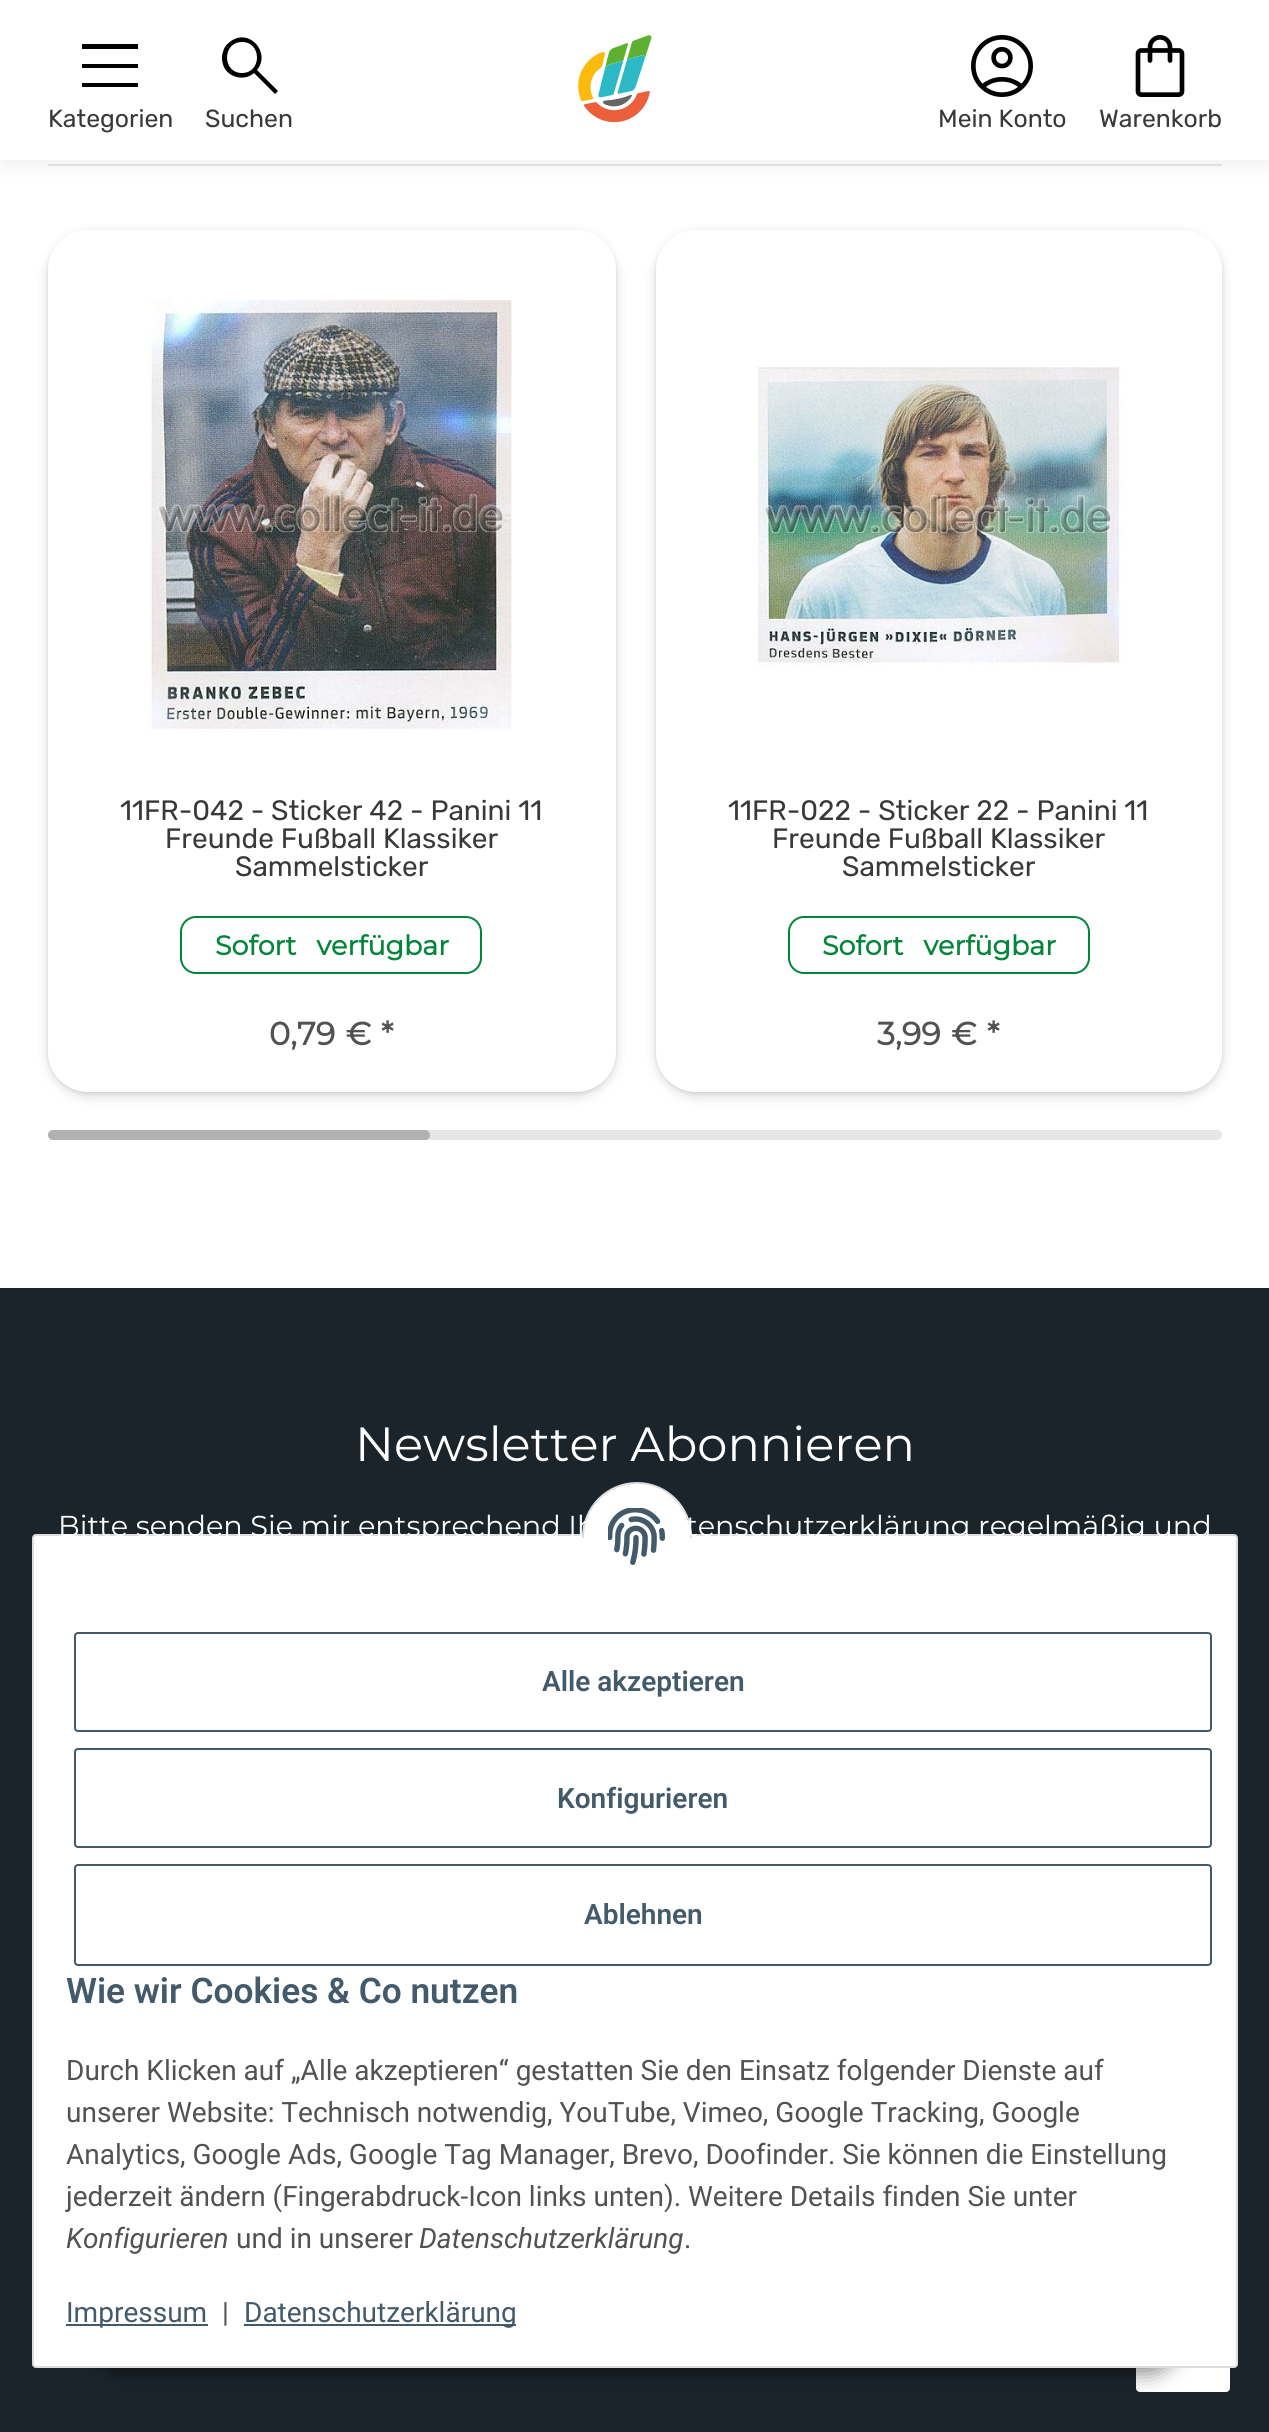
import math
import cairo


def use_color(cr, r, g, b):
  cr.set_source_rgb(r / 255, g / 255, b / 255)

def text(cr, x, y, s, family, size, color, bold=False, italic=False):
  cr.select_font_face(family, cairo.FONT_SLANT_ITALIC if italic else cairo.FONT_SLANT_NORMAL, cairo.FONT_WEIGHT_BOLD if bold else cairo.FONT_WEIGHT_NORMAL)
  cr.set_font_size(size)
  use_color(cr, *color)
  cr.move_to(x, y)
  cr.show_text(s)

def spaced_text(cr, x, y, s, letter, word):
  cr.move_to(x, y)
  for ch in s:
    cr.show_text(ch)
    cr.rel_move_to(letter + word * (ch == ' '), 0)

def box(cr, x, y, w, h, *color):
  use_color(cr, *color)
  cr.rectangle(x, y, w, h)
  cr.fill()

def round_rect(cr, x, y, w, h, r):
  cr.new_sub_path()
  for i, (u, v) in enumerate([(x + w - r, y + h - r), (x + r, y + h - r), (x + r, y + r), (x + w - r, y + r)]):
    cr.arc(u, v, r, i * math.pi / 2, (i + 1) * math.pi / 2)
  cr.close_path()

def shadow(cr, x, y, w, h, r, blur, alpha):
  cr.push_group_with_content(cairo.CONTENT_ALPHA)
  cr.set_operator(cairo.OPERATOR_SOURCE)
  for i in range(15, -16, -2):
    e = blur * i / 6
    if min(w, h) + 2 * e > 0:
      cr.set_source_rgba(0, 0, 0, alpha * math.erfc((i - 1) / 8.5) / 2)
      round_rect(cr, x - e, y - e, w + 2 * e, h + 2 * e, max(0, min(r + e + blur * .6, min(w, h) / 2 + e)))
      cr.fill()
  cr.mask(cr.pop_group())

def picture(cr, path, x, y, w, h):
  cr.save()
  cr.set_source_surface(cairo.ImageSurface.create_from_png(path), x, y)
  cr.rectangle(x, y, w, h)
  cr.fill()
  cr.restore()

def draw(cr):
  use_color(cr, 255, 255, 255)
  cr.paint()
  box(cr, 48, 164, 1174, 2, 230, 230, 230)
  use_color(cr, 0, 0, 0)
  shadow(cr, 2, 10, 1266, 156, 0, 12, 0.06)
  box(cr, 0, 0, 1269, 160, 255, 255, 255)
  use_color(cr, 0, 0, 0)
  cr.new_path()
  cr.move_to(82, 49)
  cr.line_to(82, 44)
  cr.line_to(138, 44)
  cr.line_to(138, 49)
  cr.close_path()
  cr.move_to(82, 87)
  cr.line_to(82, 83)
  cr.line_to(138, 83)
  cr.line_to(138, 87)
  cr.close_path()
  cr.move_to(82, 68)
  cr.line_to(82, 64)
  cr.line_to(138, 64)
  cr.line_to(138, 68)
  cr.close_path()
  cr.fill()
  cr.new_path()
  cr.move_to(275, 94)
  cr.line_to(254, 73)
  cr.curve_to(245, 81, 231, 78, 225, 69)
  cr.curve_to(222, 64, 221, 57, 223, 52)
  cr.curve_to(224, 47, 227, 44, 231, 41)
  cr.curve_to(250, 28, 271, 53, 257, 70)
  cr.line_to(278, 91)
  cr.close_path()
  cr.move_to(242, 73)
  cr.curve_to(262, 73, 262, 42, 242, 42)
  cr.curve_to(222, 42, 222, 73, 242, 73)
  cr.close_path()
  cr.fill()
  picture(cr, "img_01.png", 578, 35, 74, 88)
  picture(cr, "img_02.png", 971, 35, 62, 62)
  picture(cr, "img_03.png", 1135, 35, 50, 62)
  use_color(cr, 0, 0, 0)
  shadow(cr, 48, 232, 568, 862, 40, 2, 0.08)
  shadow(cr, 48, 234, 568, 862, 40, 6, 0.14)
  use_color(cr, 255, 255, 255)
  round_rect(cr, 48, 230, 568, 862, 40)
  cr.fill()
  picture(cr, "img_04.png", 148, 298, 364, 434)
  round_rect(cr, 181, 917, 300, 56, 15)
  use_color(cr, 4, 134, 58)
  cr.stroke()
  use_color(cr, 0, 0, 0)
  shadow(cr, 656, 232, 566, 862, 40, 2, 0.08)
  shadow(cr, 656, 234, 566, 862, 40, 6, 0.14)
  use_color(cr, 255, 255, 255)
  round_rect(cr, 656, 230, 566, 862, 40)
  cr.fill()
  picture(cr, "img_05.png", 756, 365, 367, 301)
  round_rect(cr, 789, 917, 300, 56, 15)
  use_color(cr, 4, 134, 58)
  cr.stroke()
  use_color(cr, 230, 230, 230)
  round_rect(cr, 48, 1130, 1174, 10, 5)
  cr.fill()
  cr.set_source_rgba(0.588, 0.588, 0.588, 0.65)
  round_rect(cr, 48, 1130, 382, 10, 5)
  cr.fill()
  box(cr, 0, 1288, 1269, 1144, 27, 36, 43)
  use_color(cr, 255, 255, 255)
  round_rect(cr, 1136, 2304, 94, 88, 4)
  cr.fill()
  use_color(cr, 0, 0, 0)
  shadow(cr, 94, 2310, 1082, 64, 32, 10, 0.45)
  use_color(cr, 255, 255, 255)
  round_rect(cr, 33, 1535, 1204, 832, 3)
  cr.fill_preserve()
  use_color(cr, 221, 221, 221)
  cr.stroke()
  use_color(cr, 255, 255, 255)
  cr.arc(637, 1537, 54, 0, 2 * math.pi)
  cr.fill_preserve()
  use_color(cr, 221, 221, 221)
  cr.stroke()
  box(cr, 582, 1538, 110, 54, 255, 255, 255)
  picture(cr, "img_06.png", 608, 1508, 57, 57)
  round_rect(cr, 75, 1633, 1136, 98, 3)
  use_color(cr, 67, 90, 107)
  cr.stroke()
  round_rect(cr, 75, 1749, 1136, 98, 3)
  cr.stroke()
  round_rect(cr, 75, 1865, 1136, 100, 3)
  cr.stroke()
  box(cr, 66, 2324, 142, 2, 67, 90, 107)
  box(cr, 244, 2324, 272, 2, 67, 90, 107)
  text(cr, 48, 127, "Kategorien", "Rubik", 24.75, (57, 57, 57))
  text(cr, 205, 127, "Suchen", "Rubik", 24.75, (57, 57, 57))
  text(cr, 938, 127, "Mein Konto", "Rubik", 24.75, (57, 57, 57))
  text(cr, 1099, 127, "Warenkorb", "Rubik", 24.75, (57, 57, 57))
  text(cr, 120, 820, "11FR-042 - Sticker 42 - Panini 11", "Rubik", 28, (57, 57, 57))
  text(cr, 165, 848, "Freunde Fußball Klassiker", "Rubik", 28, (57, 57, 57))
  text(cr, 235, 876, "Sammelsticker", "Rubik", 28, (57, 57, 57))
  cr.select_font_face("Montserrat", cairo.FONT_SLANT_NORMAL, cairo.FONT_WEIGHT_BOLD)
  cr.set_font_size(27)
  use_color(cr, 4, 134, 58)
  spaced_text(cr, 215, 955, "Sofort verfügbar", 0, 13)
  cr.set_font_size(32)
  use_color(cr, 82, 82, 82)
  spaced_text(cr, 269, 1045, "0,79 €", 0, 2)
  text(cr, 381, 1045, "*", "Montserrat", 32, (82, 82, 82), bold=True)
  text(cr, 728, 820, "11FR-022 - Sticker 22 - Panini 11", "Rubik", 28, (57, 57, 57))
  text(cr, 772, 848, "Freunde Fußball Klassiker", "Rubik", 28, (57, 57, 57))
  text(cr, 842, 876, "Sammelsticker", "Rubik", 28, (57, 57, 57))
  cr.select_font_face("Montserrat", cairo.FONT_SLANT_NORMAL, cairo.FONT_WEIGHT_BOLD)
  cr.set_font_size(27)
  use_color(cr, 4, 134, 58)
  spaced_text(cr, 822, 955, "Sofort verfügbar", 0, 13)
  cr.set_font_size(32)
  use_color(cr, 82, 82, 82)
  spaced_text(cr, 877, 1045, "3,99 €", 0, 2)
  text(cr, 987, 1045, "*", "Montserrat", 32, (82, 82, 82), bold=True)
  text(cr, 355, 1461, "Newsletter Abonnieren", "Montserrat", 48, (255, 255, 255))
  text(cr, 58, 1536, "Bitte senden Sie mir entsprechend Ih", "Montserrat", 28.75, (255, 255, 255))
  text(cr, 686, 1536, "tenschutzerklärung regelmäßig und", "Montserrat", 28.75, (255, 255, 255))
  text(cr, 542, 1691, "Alle akzeptieren", "Roboto SemiBold", 28, (67, 90, 107))
  text(cr, 557, 1808, "Konfigurieren", "Roboto SemiBold", 28, (67, 90, 107))
  text(cr, 584, 1924, "Ablehnen", "Roboto SemiBold", 28, (67, 90, 107))
  text(cr, 66, 2003, "Wie wir Cookies & Co nutzen", "Roboto SemiBold", 35.25, (67, 90, 107))
  text(cr, 66, 2080, "Durch Klicken auf „Alle akzeptieren“ gestatten Sie den Einsatz folgender Dienste auf", "Roboto", 28, (82, 82, 82))
  text(cr, 66, 2122, "unserer Website: Technisch notwendig, YouTube, Vimeo, Google Tracking, Google", "Roboto", 28, (82, 82, 82))
  text(cr, 66, 2164, "Analytics, Google Ads, Google Tag Manager, Brevo, Doofinder. Sie können die Einstellung", "Roboto", 28, (82, 82, 82))
  text(cr, 66, 2206, "jederzeit ändern (Fingerabdruck-Icon links unten). Weitere Details finden Sie unter", "Roboto", 28, (82, 82, 82))
  text(cr, 66, 2248, "Konfigurieren", "Roboto", 28, (82, 82, 82), italic=True)
  text(cr, 236, 2248, "und in unserer", "Roboto", 28, (82, 82, 82))
  text(cr, 419, 2248, "Datenschutzerklärung", "Roboto", 28, (82, 82, 82), italic=True)
  text(cr, 684, 2248, ".", "Roboto", 28, (82, 82, 82))
  text(cr, 66, 2322, "Impressum", "Roboto", 28, (67, 90, 107))
  text(cr, 222, 2322, "|", "Roboto", 28, (82, 82, 82))
  text(cr, 244, 2322, "Datenschutzerklärung", "Roboto", 28, (67, 90, 107))


surface = cairo.ImageSurface(cairo.FORMAT_RGB24, 1269, 2432)
cr = cairo.Context(surface)
options = cairo.FontOptions()
options.set_hint_metrics(cairo.HINT_METRICS_OFF)
options.set_hint_style(cairo.HINT_STYLE_NONE)
cr.set_font_options(options)
cr.set_miter_limit(4)
draw(cr)
surface.write_to_png("out.png")
